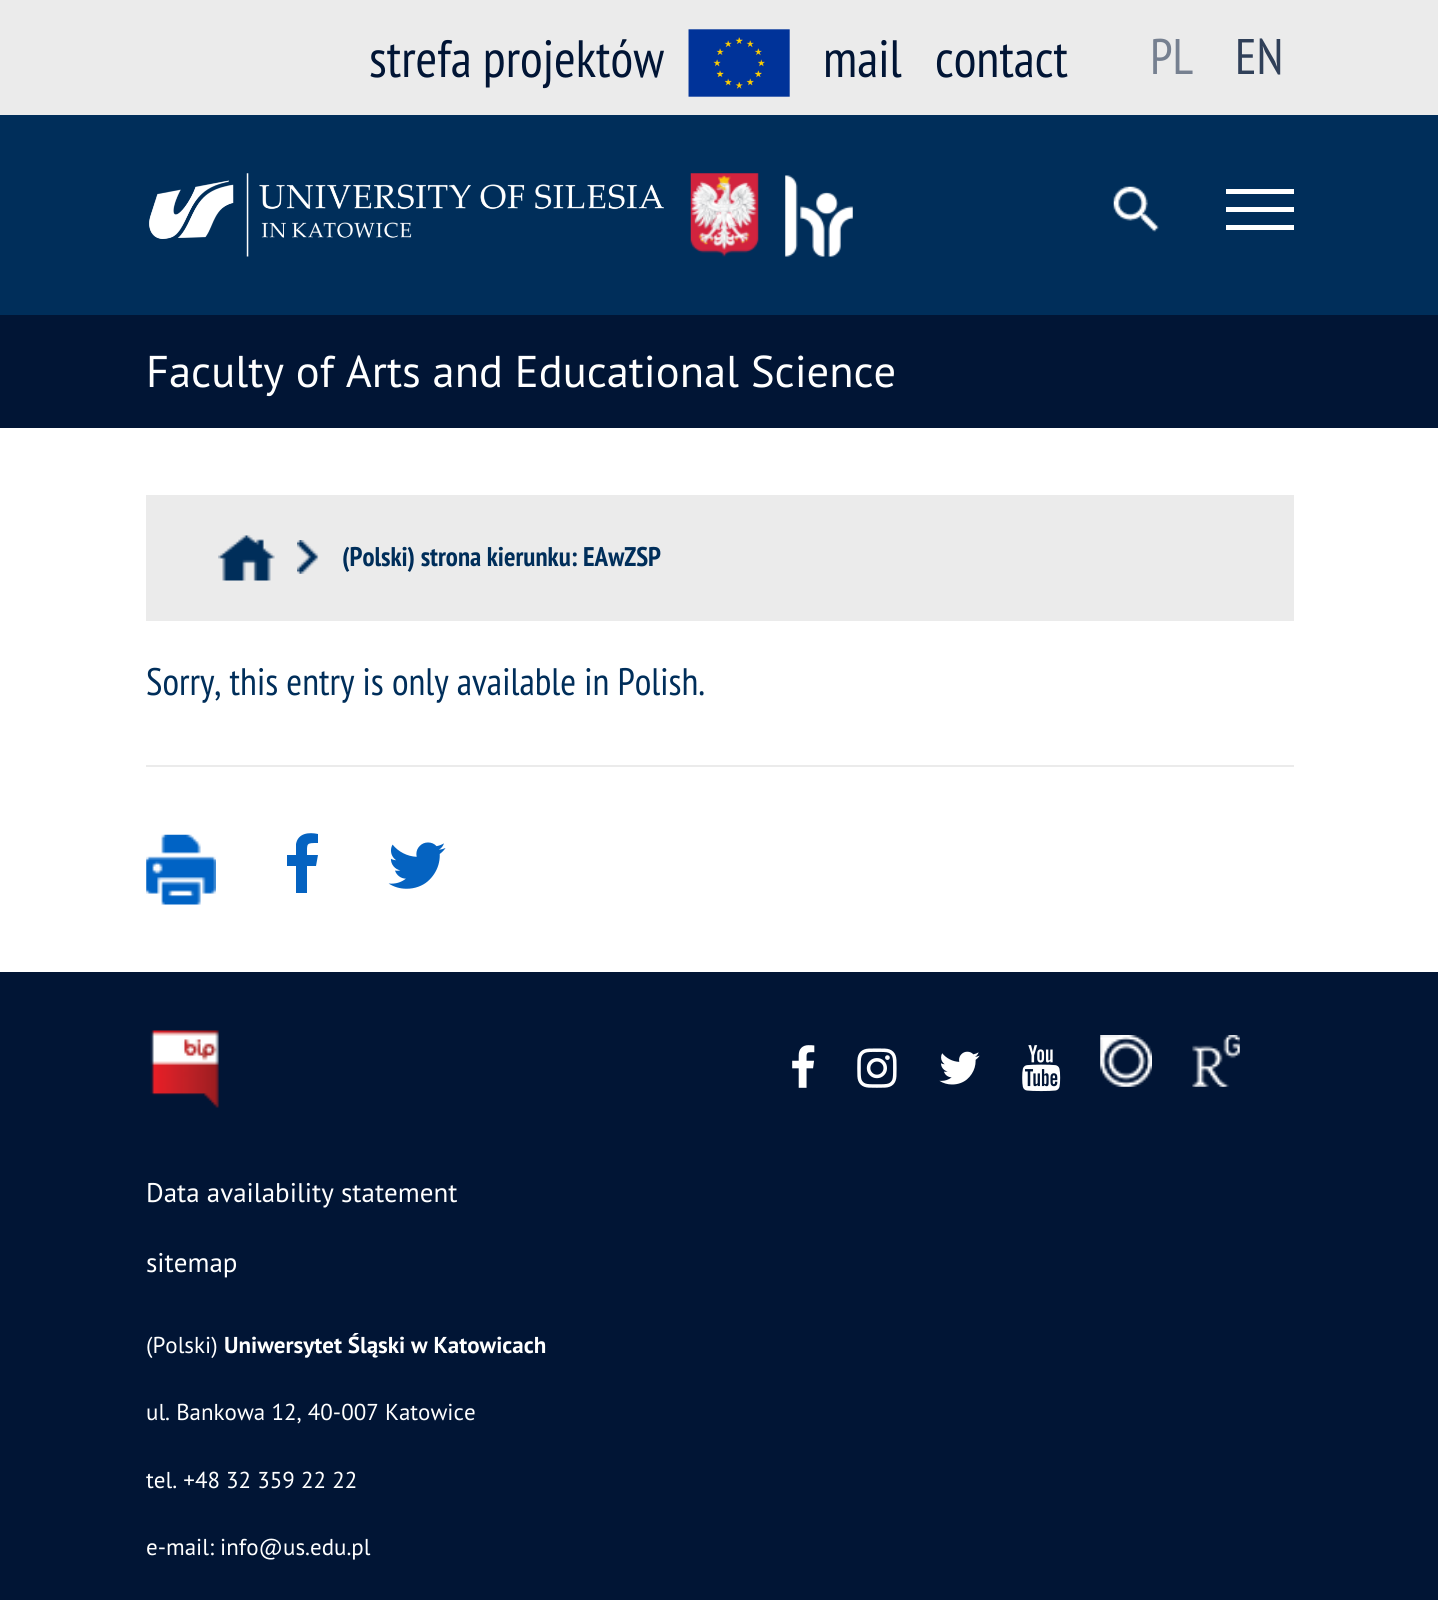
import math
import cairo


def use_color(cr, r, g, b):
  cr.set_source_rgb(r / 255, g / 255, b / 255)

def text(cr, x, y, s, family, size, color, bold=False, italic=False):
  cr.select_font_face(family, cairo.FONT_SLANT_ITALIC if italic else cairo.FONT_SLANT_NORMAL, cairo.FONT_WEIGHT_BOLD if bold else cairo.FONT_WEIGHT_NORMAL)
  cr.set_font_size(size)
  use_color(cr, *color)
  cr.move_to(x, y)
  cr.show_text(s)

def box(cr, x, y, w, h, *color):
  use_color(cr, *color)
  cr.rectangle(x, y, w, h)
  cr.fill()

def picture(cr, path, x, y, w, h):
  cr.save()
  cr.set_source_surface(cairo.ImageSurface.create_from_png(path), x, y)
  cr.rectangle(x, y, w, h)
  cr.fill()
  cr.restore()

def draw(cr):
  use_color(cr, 255, 255, 255)
  cr.paint()
  box(cr, 0, 0, 1438, 115, 235, 235, 235)
  picture(cr, "img_01.png", 688, 29, 102, 68)
  box(cr, 0, 115, 1438, 200, 0, 46, 90)
  picture(cr, "img_02.png", 149, 173, 515, 84)
  picture(cr, "img_03.png", 690, 173, 69, 84)
  picture(cr, "img_04.png", 785, 175, 68, 82)
  picture(cr, "img_05.png", 1113, 186, 46, 46)
  box(cr, 1226, 189, 68, 5, 255, 255, 255)
  box(cr, 1226, 207, 68, 5, 255, 255, 255)
  box(cr, 1226, 225, 68, 5, 255, 255, 255)
  box(cr, 0, 315, 1438, 113, 1, 21, 53)
  box(cr, 146, 495, 1148, 126, 235, 235, 235)
  picture(cr, "img_06.png", 218, 535, 57, 46)
  picture(cr, "img_07.png", 297, 540, 22, 34)
  box(cr, 146, 765, 1148, 2, 235, 235, 235)
  picture(cr, "img_08.png", 146, 834, 70, 71)
  use_color(cr, 5, 99, 193)
  cr.new_path()
  cr.move_to(318, 834)
  cr.line_to(318, 843)
  cr.curve_to(306, 843, 307, 843, 307, 855)
  cr.line_to(318, 855)
  cr.line_to(316, 866)
  cr.line_to(307, 866)
  cr.line_to(307, 893)
  cr.line_to(296, 893)
  cr.line_to(296, 866)
  cr.line_to(287, 866)
  cr.line_to(287, 855)
  cr.line_to(296, 855)
  cr.line_to(296, 844)
  cr.curve_to(298, 833, 309, 832, 318, 834)
  cr.close_path()
  cr.fill()
  picture(cr, "img_09.png", 388, 842, 58, 47)
  box(cr, 0, 972, 1438, 628, 1, 21, 53)
  picture(cr, "img_10.png", 150, 1030, 69, 78)
  picture(cr, "img_11.png", 792, 1045, 23, 43)
  picture(cr, "img_12.png", 857, 1048, 40, 40)
  picture(cr, "img_13.png", 939, 1051, 41, 34)
  picture(cr, "img_14.png", 1022, 1045, 39, 47)
  picture(cr, "img_15.png", 1100, 1035, 52, 52)
  picture(cr, "img_16.png", 1192, 1035, 48, 52)
  text(cr, 369, 77, "strefa projektów", "PT Sans Narrow", 52.5, (1, 21, 53))
  text(cr, 823, 77, "mail", "PT Sans Narrow", 52.5, (1, 21, 53))
  text(cr, 935, 77, "contact", "PT Sans Narrow", 52.5, (1, 21, 53))
  text(cr, 1150, 74, "PL", "PT Sans Narrow", 50, (118, 128, 144))
  text(cr, 1235, 74, "EN", "PT Sans Narrow", 50, (48, 64, 89))
  text(cr, 146, 387, "Faculty of Arts and Educational Science", "PT Sans", 44.5, (255, 255, 255))
  text(cr, 342, 566, "(Polski) strona kierunku: EAwZSP", "PT Sans Narrow", 27, (0, 46, 90), bold=True)
  text(cr, 146, 695, "Sorry, this entry is only available in Polish.", "PT Sans Narrow", 38.3, (0, 46, 90))
  text(cr, 146, 1202, "Data availability statement", "PT Sans", 27, (255, 255, 255))
  text(cr, 146, 1272, "sitemap", "PT Sans", 27, (255, 255, 255))
  text(cr, 146, 1353, "(Polski)", "PT Sans", 23, (255, 255, 255))
  text(cr, 224, 1353, "Uniwersytet Śląski w Katowicach", "PT Sans", 23, (255, 255, 255), bold=True)
  text(cr, 146, 1420, "ul. Bankowa 12, 40-007 Katowice", "PT Sans", 23, (255, 255, 255))
  text(cr, 146, 1488, "tel. +48 32 359 22 22", "PT Sans", 23, (255, 255, 255))
  text(cr, 146, 1555, "e-mail: info@us.edu.pl", "PT Sans", 23, (255, 255, 255))


surface = cairo.ImageSurface(cairo.FORMAT_RGB24, 1438, 1600)
cr = cairo.Context(surface)
options = cairo.FontOptions()
options.set_hint_metrics(cairo.HINT_METRICS_OFF)
options.set_hint_style(cairo.HINT_STYLE_NONE)
cr.set_font_options(options)
cr.set_miter_limit(4)
draw(cr)
surface.write_to_png("out.png")
